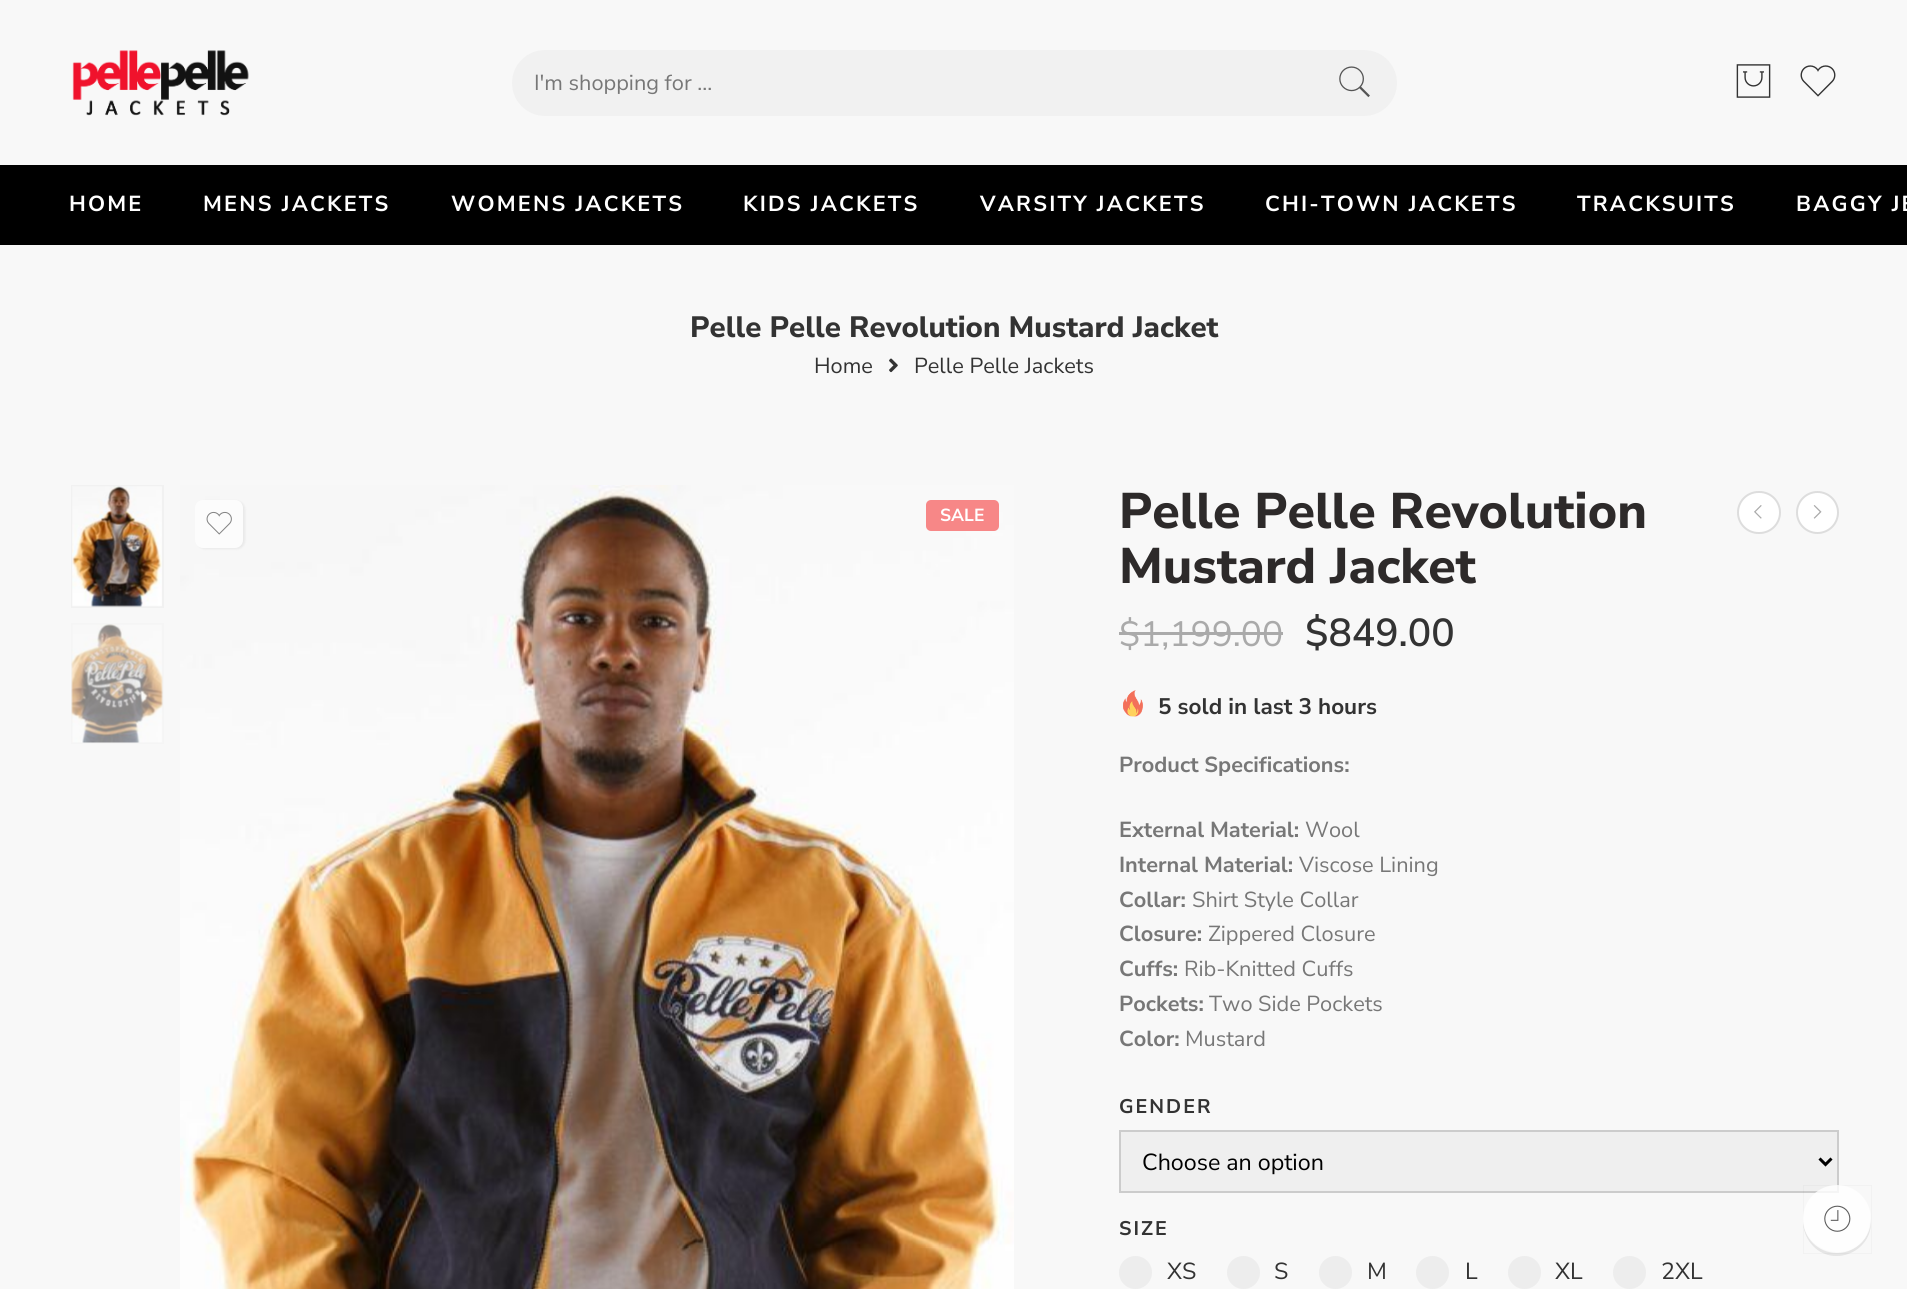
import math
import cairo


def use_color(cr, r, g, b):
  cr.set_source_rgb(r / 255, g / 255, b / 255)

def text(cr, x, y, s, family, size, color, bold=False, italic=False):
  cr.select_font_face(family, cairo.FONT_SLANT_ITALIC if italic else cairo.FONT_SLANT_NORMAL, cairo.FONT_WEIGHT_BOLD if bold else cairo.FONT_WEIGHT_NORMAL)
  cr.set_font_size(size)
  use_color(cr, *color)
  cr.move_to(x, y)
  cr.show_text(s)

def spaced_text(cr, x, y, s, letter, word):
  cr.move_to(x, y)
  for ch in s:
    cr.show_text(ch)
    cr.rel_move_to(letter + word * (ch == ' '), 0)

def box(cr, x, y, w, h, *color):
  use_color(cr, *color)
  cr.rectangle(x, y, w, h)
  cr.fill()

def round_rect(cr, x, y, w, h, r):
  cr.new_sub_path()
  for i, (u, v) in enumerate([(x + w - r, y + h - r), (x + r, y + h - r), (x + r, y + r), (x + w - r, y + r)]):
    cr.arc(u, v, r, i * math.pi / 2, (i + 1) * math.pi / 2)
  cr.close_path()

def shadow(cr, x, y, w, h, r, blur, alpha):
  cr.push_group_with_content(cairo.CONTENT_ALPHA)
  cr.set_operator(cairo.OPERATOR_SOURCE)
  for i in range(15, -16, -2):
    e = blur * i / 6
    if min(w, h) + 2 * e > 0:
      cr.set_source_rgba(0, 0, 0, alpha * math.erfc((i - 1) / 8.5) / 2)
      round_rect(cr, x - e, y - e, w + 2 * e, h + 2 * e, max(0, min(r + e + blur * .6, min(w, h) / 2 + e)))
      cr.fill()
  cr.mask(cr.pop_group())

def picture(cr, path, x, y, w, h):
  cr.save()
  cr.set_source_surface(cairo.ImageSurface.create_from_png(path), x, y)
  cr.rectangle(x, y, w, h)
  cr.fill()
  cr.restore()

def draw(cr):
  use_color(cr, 248, 248, 248)
  cr.paint()
  picture(cr, "img_01.png", 72, 50, 177, 66)
  use_color(cr, 241, 241, 241)
  round_rect(cr, 512, 50, 885, 66, 33)
  cr.fill()
  picture(cr, "img_02.png", 1339, 66, 31, 32)
  picture(cr, "img_03.png", 1736, 64, 35, 34)
  picture(cr, "img_04.png", 1800, 65, 36, 32)
  box(cr, 0, 165, 1907, 80, 0, 0, 0)
  picture(cr, "img_05.png", 889, 358, 9, 15)
  cr.rectangle(72, 486, 91, 121)
  use_color(cr, 241, 241, 241)
  cr.stroke()
  picture(cr, "img_06.png", 72, 486, 90, 121)
  cr.rectangle(72, 624, 91, 119)
  use_color(cr, 245, 245, 245)
  cr.stroke()
  picture(cr, "img_07.png", 71, 624, 92, 119)
  picture(cr, "img_08.png", 180, 485, 834, 804)
  use_color(cr, 99, 99, 99)
  shadow(cr, 197, 501, 48, 48, 8, 1, 0.1)
  use_color(cr, 252, 252, 252)
  round_rect(cr, 195, 500, 48, 48, 8)
  cr.fill()
  picture(cr, "img_09.png", 206, 511, 26, 24)
  use_color(cr, 247, 135, 135)
  round_rect(cr, 926, 500, 73, 31, 5)
  cr.fill()
  use_color(cr, 255, 255, 255)
  round_rect(cr, 1738, 492, 42, 41, 20.5)
  cr.fill_preserve()
  use_color(cr, 221, 221, 221)
  cr.stroke()
  picture(cr, "img_10.png", 1754, 505, 8, 14)
  use_color(cr, 255, 255, 255)
  cr.arc(1817.5, 512.5, 20.5, 0, 2 * math.pi)
  cr.fill_preserve()
  use_color(cr, 221, 221, 221)
  cr.stroke()
  picture(cr, "img_11.png", 1813, 505, 9, 14)
  box(cr, 1119, 632, 164, 3, 170, 170, 170)
  picture(cr, "img_12.png", 1123, 690, 20, 27)
  use_color(cr, 239, 239, 239)
  cr.rectangle(1120, 1131, 718, 61)
  cr.fill_preserve()
  use_color(cr, 204, 204, 204)
  cr.stroke()
  cr.new_path()
  cr.move_to(1819.5, 1158.5)
  cr.line_to(1825.5, 1164.5)
  cr.line_to(1831.5, 1158.5)
  use_color(cr, 0, 0, 0)
  cr.set_line_width(3)
  cr.stroke()
  use_color(cr, 237, 237, 237)
  cr.arc(1135.5, 1272.5, 16.5, 0, 2 * math.pi)
  cr.fill()
  cr.arc(1243.5, 1272.5, 16.5, 0, 2 * math.pi)
  cr.fill()
  cr.arc(1335.5, 1272.5, 16.5, 0, 2 * math.pi)
  cr.fill()
  cr.arc(1432.5, 1272.5, 16.5, 0, 2 * math.pi)
  cr.fill()
  cr.arc(1524.5, 1272.5, 16.5, 0, 2 * math.pi)
  cr.fill()
  cr.arc(1629.5, 1272.5, 16.5, 0, 2 * math.pi)
  cr.fill()
  cr.rectangle(1803.4, 1185.4, 68.2, 68.2)
  cr.set_source_rgba(0, 0, 0, 0.03)
  cr.set_line_width(0.8)
  cr.stroke()
  cr.set_source_rgba(0, 0, 0, 0.08)
  cr.new_path()
  cr.move_to(1803, 1220)
  cr.curve_to(1803, 1228, 1805, 1235, 1809, 1241)
  cr.curve_to(1830, 1272, 1878, 1251, 1870, 1215)
  cr.curve_to(1871, 1223, 1869, 1231, 1865, 1238)
  cr.curve_to(1847, 1264, 1805, 1252, 1803, 1220)
  cr.close_path()
  cr.fill()
  cr.set_source_rgba(1, 1, 1, 0.8)
  cr.arc(1837, 1219, 34, 0, 2 * math.pi)
  cr.fill()
  picture(cr, "img_13.png", 1824, 1205, 27, 27)
  text(cr, 534, 90, "I'm shopping for ...", "Nunito Sans", 21.75, (119, 119, 119))
  cr.select_font_face("Nunito Sans", cairo.FONT_SLANT_NORMAL, cairo.FONT_WEIGHT_BOLD)
  use_color(cr, 255, 255, 255)
  spaced_text(cr, 69, 211, "HOME", 2.2, 0)
  spaced_text(cr, 203, 211, "MENS JACKETS", 2.2, 0)
  spaced_text(cr, 451, 211, "WOMENS JACKETS", 2.2, 0)
  spaced_text(cr, 743, 211, "KIDS JACKETS", 2.2, 0)
  spaced_text(cr, 980, 211, "VARSITY JACKETS", 2.2, 0)
  spaced_text(cr, 1265, 211, "CHI-TOWN JACKETS", 2.2, 0)
  spaced_text(cr, 1577, 211, "TRACKSUITS", 2.2, 0)
  spaced_text(cr, 1796, 211, "BAGGY JE", 2.2, 0)
  text(cr, 690, 337, "Pelle Pelle Revolution Mustard Jacket", "Nunito Sans ExtraBold", 29.4, (51, 51, 51))
  text(cr, 814, 373, "Home", "Nunito Sans", 21.75, (51, 51, 51))
  text(cr, 914, 373, "Pelle Pelle Jackets", "Nunito Sans", 21.75, (51, 51, 51))
  text(cr, 940, 521, "SALE", "Nunito Sans", 17.5, (255, 255, 255), bold=True)
  text(cr, 1119, 528, "Pelle Pelle Revolution", "Nunito Sans ExtraBold", 50, (45, 42, 42))
  text(cr, 1119, 583, "Mustard Jacket", "Nunito Sans ExtraBold", 50, (45, 42, 42))
  text(cr, 1119, 646, "$1,199.00", "Nunito Sans", 35.25, (170, 170, 170))
  text(cr, 1305, 646, "$849.00", "Nunito Sans SemiBold", 39, (51, 51, 51))
  text(cr, 1158, 714, "5 sold in last 3 hours", "Nunito Sans", 22.5, (51, 51, 51), bold=True)
  text(cr, 1119, 772, "Product Specifications:", "Nunito Sans", 21.75, (119, 119, 119), bold=True)
  text(cr, 1119, 837, "External Material:", "Nunito Sans", 21.75, (119, 119, 119), bold=True)
  text(cr, 1305, 837, "Wool", "Nunito Sans", 21.75, (119, 119, 119))
  text(cr, 1119, 872, "Internal Material:", "Nunito Sans", 21.75, (119, 119, 119), bold=True)
  text(cr, 1299, 872, "Viscose Lining", "Nunito Sans", 21.75, (119, 119, 119))
  text(cr, 1119, 907, "Collar:", "Nunito Sans", 21.75, (119, 119, 119), bold=True)
  text(cr, 1192, 907, "Shirt Style Collar", "Nunito Sans", 21.75, (119, 119, 119))
  text(cr, 1119, 941, "Closure:", "Nunito Sans", 21.75, (119, 119, 119), bold=True)
  text(cr, 1208, 941, "Zippered Closure", "Nunito Sans", 21.75, (119, 119, 119))
  text(cr, 1119, 976, "Cuffs:", "Nunito Sans", 21.75, (119, 119, 119), bold=True)
  text(cr, 1184, 976, "Rib-Knitted Cuffs", "Nunito Sans", 21.75, (119, 119, 119))
  text(cr, 1119, 1011, "Pockets:", "Nunito Sans", 21.75, (119, 119, 119), bold=True)
  text(cr, 1209, 1011, "Two Side Pockets", "Nunito Sans", 21.75, (119, 119, 119))
  text(cr, 1119, 1046, "Color:", "Nunito Sans", 21.75, (119, 119, 119), bold=True)
  text(cr, 1185, 1046, "Mustard", "Nunito Sans", 21.75, (119, 119, 119))
  cr.select_font_face("Nunito Sans", cairo.FONT_SLANT_NORMAL, cairo.FONT_WEIGHT_BOLD)
  cr.set_font_size(19.75)
  use_color(cr, 51, 51, 51)
  spaced_text(cr, 1119, 1113, "GENDER", 2, 0)
  text(cr, 1142, 1170, "Choose an option", "Nunito Sans", 23.25, (0, 0, 0))
  cr.select_font_face("Nunito Sans", cairo.FONT_SLANT_NORMAL, cairo.FONT_WEIGHT_BOLD)
  cr.set_font_size(19.75)
  use_color(cr, 51, 51, 51)
  spaced_text(cr, 1119, 1235, "SIZE", 2, 0)
  text(cr, 1167, 1279, "XS", "Nunito Sans", 23.25, (51, 51, 51))
  text(cr, 1274, 1279, "S", "Nunito Sans", 23.25, (51, 51, 51))
  text(cr, 1367, 1279, "M", "Nunito Sans", 23.25, (51, 51, 51))
  text(cr, 1465, 1279, "L", "Nunito Sans", 23.25, (51, 51, 51))
  text(cr, 1555, 1279, "XL", "Nunito Sans", 23.25, (51, 51, 51))
  text(cr, 1661, 1279, "2XL", "Nunito Sans", 23.25, (51, 51, 51))


surface = cairo.ImageSurface(cairo.FORMAT_RGB24, 1907, 1289)
cr = cairo.Context(surface)
options = cairo.FontOptions()
options.set_hint_metrics(cairo.HINT_METRICS_OFF)
options.set_hint_style(cairo.HINT_STYLE_NONE)
cr.set_font_options(options)
cr.set_miter_limit(4)
draw(cr)
surface.write_to_png("out.png")
